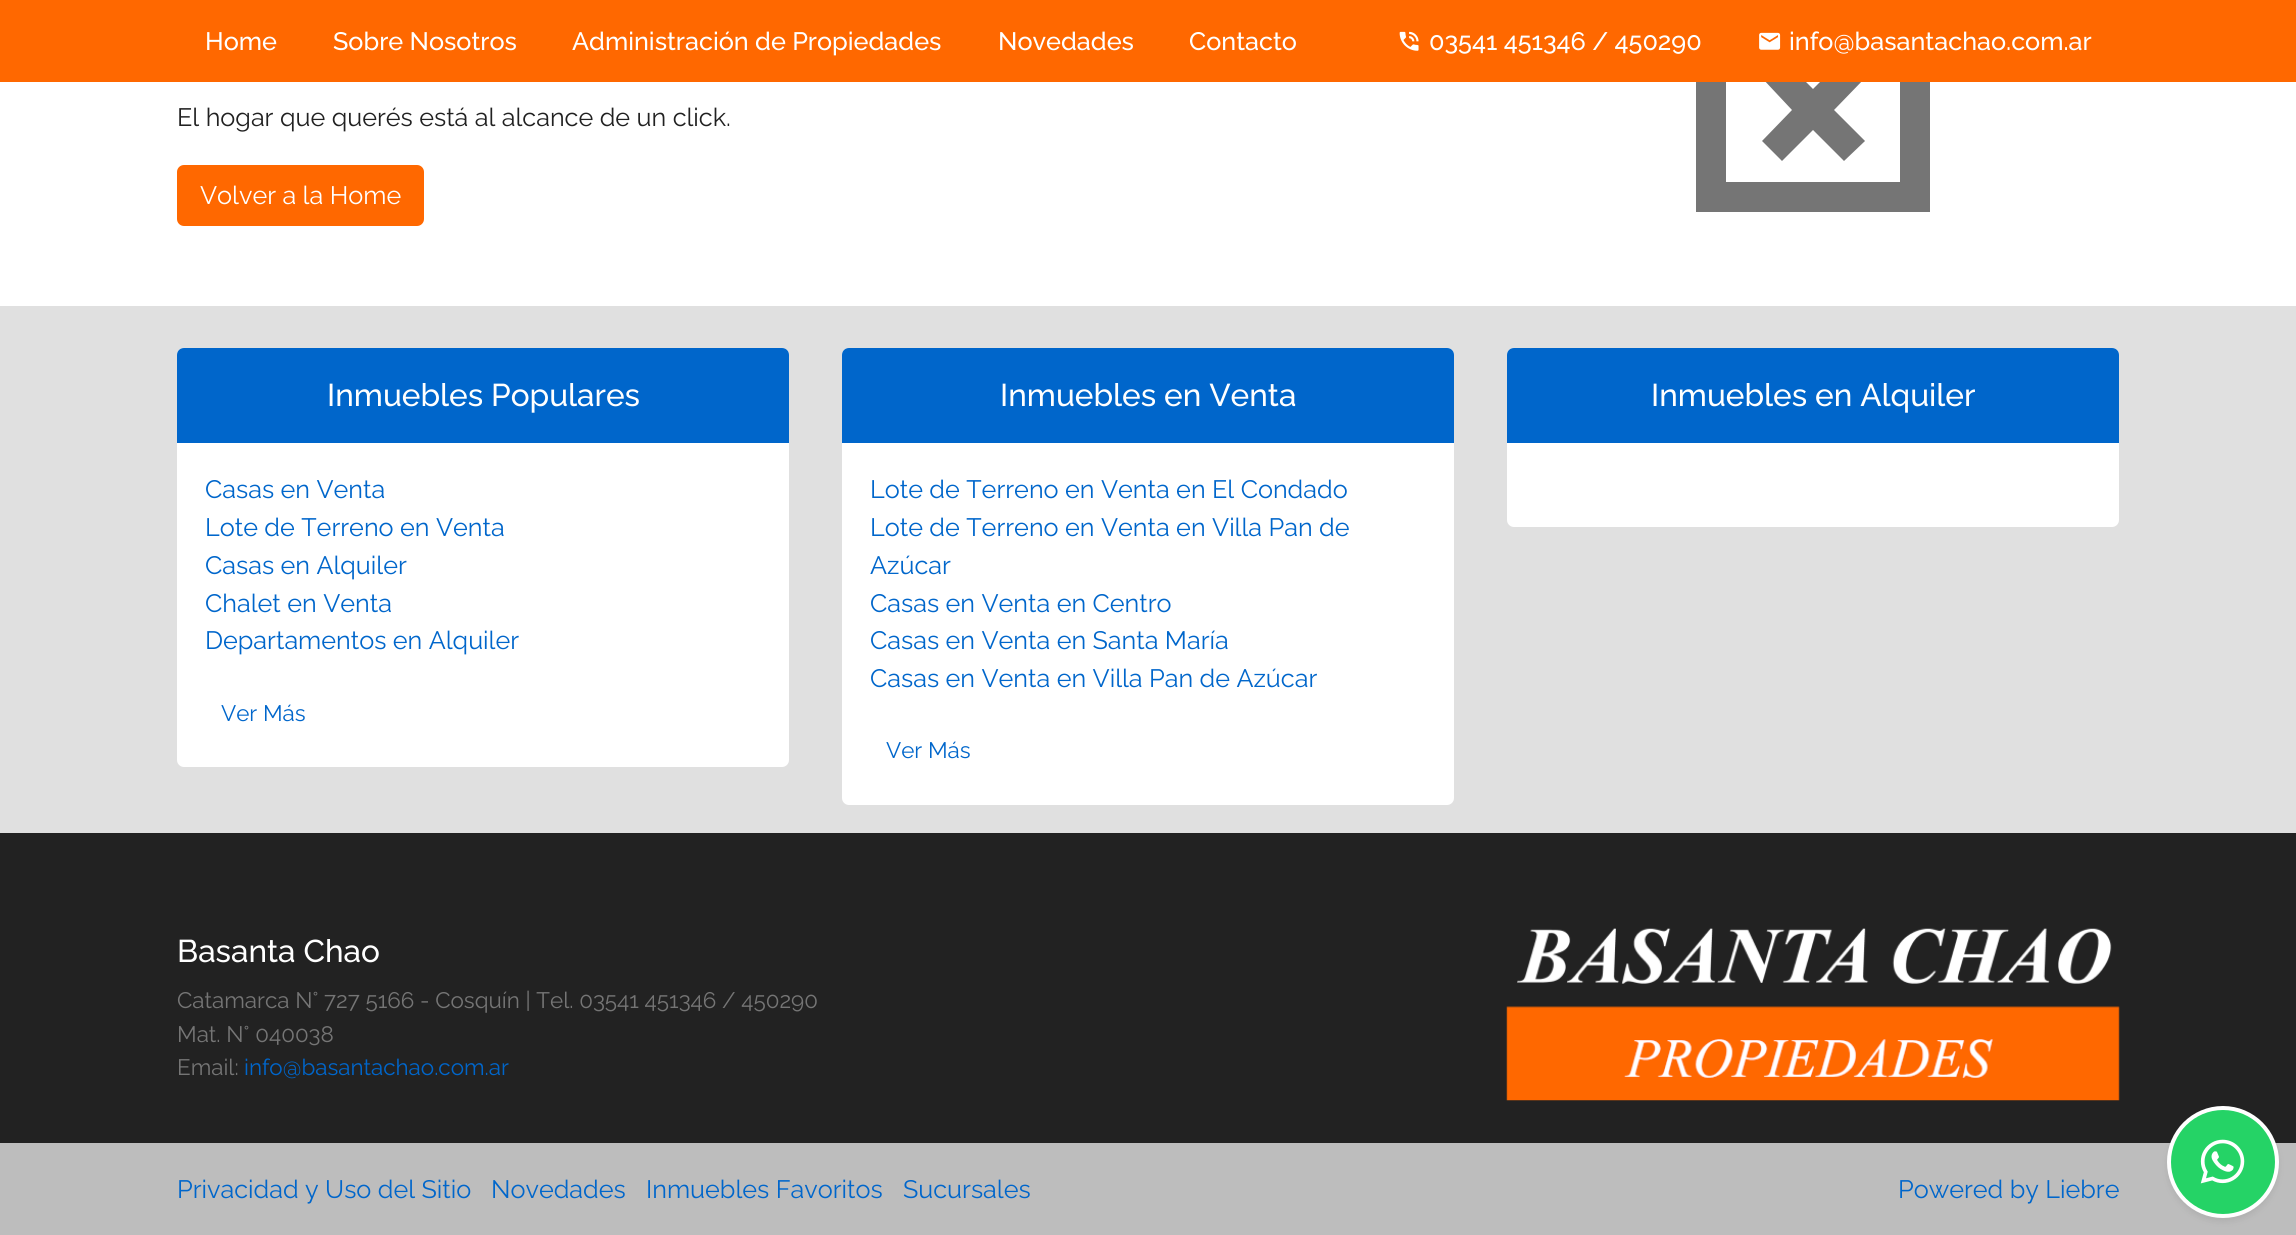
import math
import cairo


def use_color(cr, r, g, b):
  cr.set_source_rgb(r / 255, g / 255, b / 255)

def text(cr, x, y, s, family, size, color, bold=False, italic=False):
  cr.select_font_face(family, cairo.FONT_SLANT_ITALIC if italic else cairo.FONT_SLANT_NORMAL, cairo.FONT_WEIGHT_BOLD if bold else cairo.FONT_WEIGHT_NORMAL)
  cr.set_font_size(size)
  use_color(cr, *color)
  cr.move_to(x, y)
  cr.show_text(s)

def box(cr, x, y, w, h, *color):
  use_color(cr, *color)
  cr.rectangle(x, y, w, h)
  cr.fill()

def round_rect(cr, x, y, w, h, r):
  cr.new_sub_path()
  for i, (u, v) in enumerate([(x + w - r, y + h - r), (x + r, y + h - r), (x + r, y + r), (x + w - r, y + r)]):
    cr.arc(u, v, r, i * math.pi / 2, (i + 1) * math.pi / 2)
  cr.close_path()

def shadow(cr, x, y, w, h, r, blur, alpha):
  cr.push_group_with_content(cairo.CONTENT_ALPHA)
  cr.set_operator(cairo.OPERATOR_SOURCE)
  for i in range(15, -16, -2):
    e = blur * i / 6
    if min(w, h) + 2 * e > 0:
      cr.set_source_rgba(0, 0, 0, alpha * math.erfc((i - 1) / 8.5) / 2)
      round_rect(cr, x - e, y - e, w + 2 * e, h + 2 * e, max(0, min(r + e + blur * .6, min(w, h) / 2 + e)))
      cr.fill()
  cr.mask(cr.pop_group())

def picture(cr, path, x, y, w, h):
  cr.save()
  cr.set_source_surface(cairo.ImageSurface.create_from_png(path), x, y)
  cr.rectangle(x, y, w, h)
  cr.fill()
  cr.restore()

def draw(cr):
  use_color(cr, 255, 255, 255)
  cr.paint()
  use_color(cr, 117, 117, 117)
  cr.new_path()
  cr.move_to(1813, -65)
  cr.line_to(1667, 80)
  cr.line_to(1696, 80)
  cr.line_to(1696, 212)
  cr.line_to(1930, 212)
  cr.line_to(1930, 80)
  cr.line_to(1959, 80)
  cr.close_path()
  cr.move_to(1813, -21)
  cr.line_to(1900, 66)
  cr.line_to(1900, 182)
  cr.line_to(1726, 182)
  cr.line_to(1726, 66)
  cr.close_path()
  cr.move_to(1844, 58)
  cr.line_to(1865, 78)
  cr.line_to(1834, 110)
  cr.line_to(1865, 141)
  cr.line_to(1844, 161)
  cr.line_to(1813, 130)
  cr.line_to(1782, 161)
  cr.line_to(1762, 141)
  cr.line_to(1792, 110)
  cr.line_to(1762, 78)
  cr.line_to(1782, 58)
  cr.line_to(1813, 89)
  cr.close_path()
  cr.fill()
  box(cr, 0, 0, 2296, 82, 255, 104, 0)
  picture(cr, "img_01.png", 1399, 31, 20, 20)
  picture(cr, "img_02.png", 1759, 32, 22, 18)
  round_rect(cr, 178, 166, 245, 59, 6)
  cr.fill_preserve()
  cr.stroke()
  box(cr, 0, 306, 2296, 527, 224, 224, 224)
  use_color(cr, 255, 255, 255)
  round_rect(cr, 177, 348, 612, 419, 7)
  cr.fill()
  use_color(cr, 0, 102, 203)
  cr.new_path()
  cr.move_to(184, 348)
  cr.line_to(782, 348)
  cr.curve_to(786, 348, 789, 351, 789, 355)
  cr.line_to(789, 443)
  cr.line_to(177, 443)
  cr.line_to(177, 355)
  cr.curve_to(177, 351, 180, 348, 184, 348)
  cr.close_path()
  cr.fill()
  use_color(cr, 255, 255, 255)
  round_rect(cr, 842, 348, 612, 457, 7)
  cr.fill()
  use_color(cr, 0, 102, 203)
  cr.new_path()
  cr.move_to(849, 348)
  cr.line_to(1447, 348)
  cr.curve_to(1451, 348, 1454, 351, 1454, 355)
  cr.line_to(1454, 443)
  cr.line_to(842, 443)
  cr.line_to(842, 355)
  cr.curve_to(842, 351, 845, 348, 849, 348)
  cr.close_path()
  cr.fill()
  use_color(cr, 255, 255, 255)
  round_rect(cr, 1507, 348, 612, 179, 7)
  cr.fill()
  use_color(cr, 0, 102, 203)
  cr.new_path()
  cr.move_to(1514, 348)
  cr.line_to(2112, 348)
  cr.curve_to(2116, 348, 2119, 351, 2119, 355)
  cr.line_to(2119, 443)
  cr.line_to(1507, 443)
  cr.line_to(1507, 355)
  cr.curve_to(1507, 351, 1510, 348, 1514, 348)
  cr.close_path()
  cr.fill()
  box(cr, 0, 833, 2296, 310, 34, 34, 34)
  picture(cr, "img_03.png", 1506, 928, 614, 173)
  box(cr, 0, 1143, 2296, 92, 189, 189, 189)
  use_color(cr, 0, 0, 0)
  shadow(cr, 2167, 1110, 112, 112, 56, 3.5, 0.07)
  use_color(cr, 37, 211, 102)
  cr.arc(2223, 1162, 54, 0, 2 * math.pi)
  cr.fill_preserve()
  use_color(cr, 255, 255, 255)
  cr.set_line_width(4)
  cr.stroke()
  picture(cr, "img_04.png", 2200, 1139, 45, 45)
  text(cr, 205, 50, "Home", "Raleway Medium", 25.2, (255, 255, 255))
  text(cr, 333, 50, "Sobre Nosotros", "Raleway Medium", 25.2, (255, 255, 255))
  text(cr, 572, 50, "Administración de Propiedades", "Raleway Medium", 25.2, (255, 255, 255))
  text(cr, 998, 50, "Novedades", "Raleway Medium", 25.2, (255, 255, 255))
  text(cr, 1189, 50, "Contacto", "Raleway Medium", 25.2, (255, 255, 255))
  text(cr, 1429, 50, "03541 451346 / 450290", "Raleway Medium", 25.2, (255, 255, 255))
  text(cr, 1789, 50, "info@basantachao.com.ar", "Raleway Medium", 25.2, (255, 255, 255))
  text(cr, 177, 126, "El hogar que querés está al alcance de un click.", "Raleway", 25.2, (33, 33, 33))
  text(cr, 200, 204, "Volver a la Home", "Raleway", 25.2, (255, 255, 255))
  text(cr, 327, 406, "Inmuebles Populares", "Raleway Medium", 31.5, (255, 255, 255))
  text(cr, 205, 498, "Casas en Venta", "Raleway", 25.2, (0, 102, 203))
  text(cr, 205, 536, "Lote de Terreno en Venta", "Raleway", 25.2, (0, 102, 203))
  text(cr, 205, 574, "Casas en Alquiler", "Raleway", 25.2, (0, 102, 203))
  text(cr, 205, 612, "Chalet en Venta", "Raleway", 25.2, (0, 102, 203))
  text(cr, 205, 649, "Departamentos en Alquiler", "Raleway", 25.2, (0, 102, 203))
  text(cr, 221, 721, "Ver Más", "Raleway", 22.4, (0, 102, 203))
  text(cr, 1000, 406, "Inmuebles en Venta", "Raleway Medium", 31.5, (255, 255, 255))
  text(cr, 870, 498, "Lote de Terreno en Venta en El Condado", "Raleway", 25.2, (0, 102, 203))
  text(cr, 870, 536, "Lote de Terreno en Venta en Villa Pan de", "Raleway", 25.2, (0, 102, 203))
  text(cr, 870, 574, "Azúcar", "Raleway", 25.2, (0, 102, 203))
  text(cr, 870, 612, "Casas en Venta en Centro", "Raleway", 25.2, (0, 102, 203))
  text(cr, 870, 649, "Casas en Venta en Santa María", "Raleway", 25.2, (0, 102, 203))
  text(cr, 870, 687, "Casas en Venta en Villa Pan de Azúcar", "Raleway", 25.2, (0, 102, 203))
  text(cr, 886, 758, "Ver Más", "Raleway", 22.4, (0, 102, 203))
  text(cr, 1651, 406, "Inmuebles en Alquiler", "Raleway Medium", 31.5, (255, 255, 255))
  text(cr, 177, 962, "Basanta Chao", "Raleway Medium", 31.5, (255, 255, 255))
  text(cr, 177, 1008, "Catamarca N° 727 5166 - Cosquín | Tel. 03541 451346 / 450290", "Raleway", 22.4, (117, 117, 117))
  text(cr, 177, 1042, "Mat. N° 040038", "Raleway", 22.4, (117, 117, 117))
  text(cr, 177, 1075, "Email:", "Raleway", 22.4, (117, 117, 117))
  text(cr, 244, 1075, "info@basantachao.com.ar", "Raleway", 22.4, (0, 102, 203))
  text(cr, 177, 1198, "Privacidad y Uso del Sitio", "Raleway", 25.2, (0, 102, 203))
  text(cr, 491, 1198, "Novedades", "Raleway", 25.2, (0, 102, 203))
  text(cr, 646, 1198, "Inmuebles Favoritos", "Raleway", 25.2, (0, 102, 203))
  text(cr, 903, 1198, "Sucursales", "Raleway", 25.2, (0, 102, 203))
  text(cr, 1898, 1198, "Powered by Liebre", "Raleway", 25.2, (0, 102, 203))


surface = cairo.ImageSurface(cairo.FORMAT_RGB24, 2296, 1235)
cr = cairo.Context(surface)
options = cairo.FontOptions()
options.set_hint_metrics(cairo.HINT_METRICS_OFF)
options.set_hint_style(cairo.HINT_STYLE_NONE)
cr.set_font_options(options)
cr.set_miter_limit(4)
draw(cr)
surface.write_to_png("out.png")
